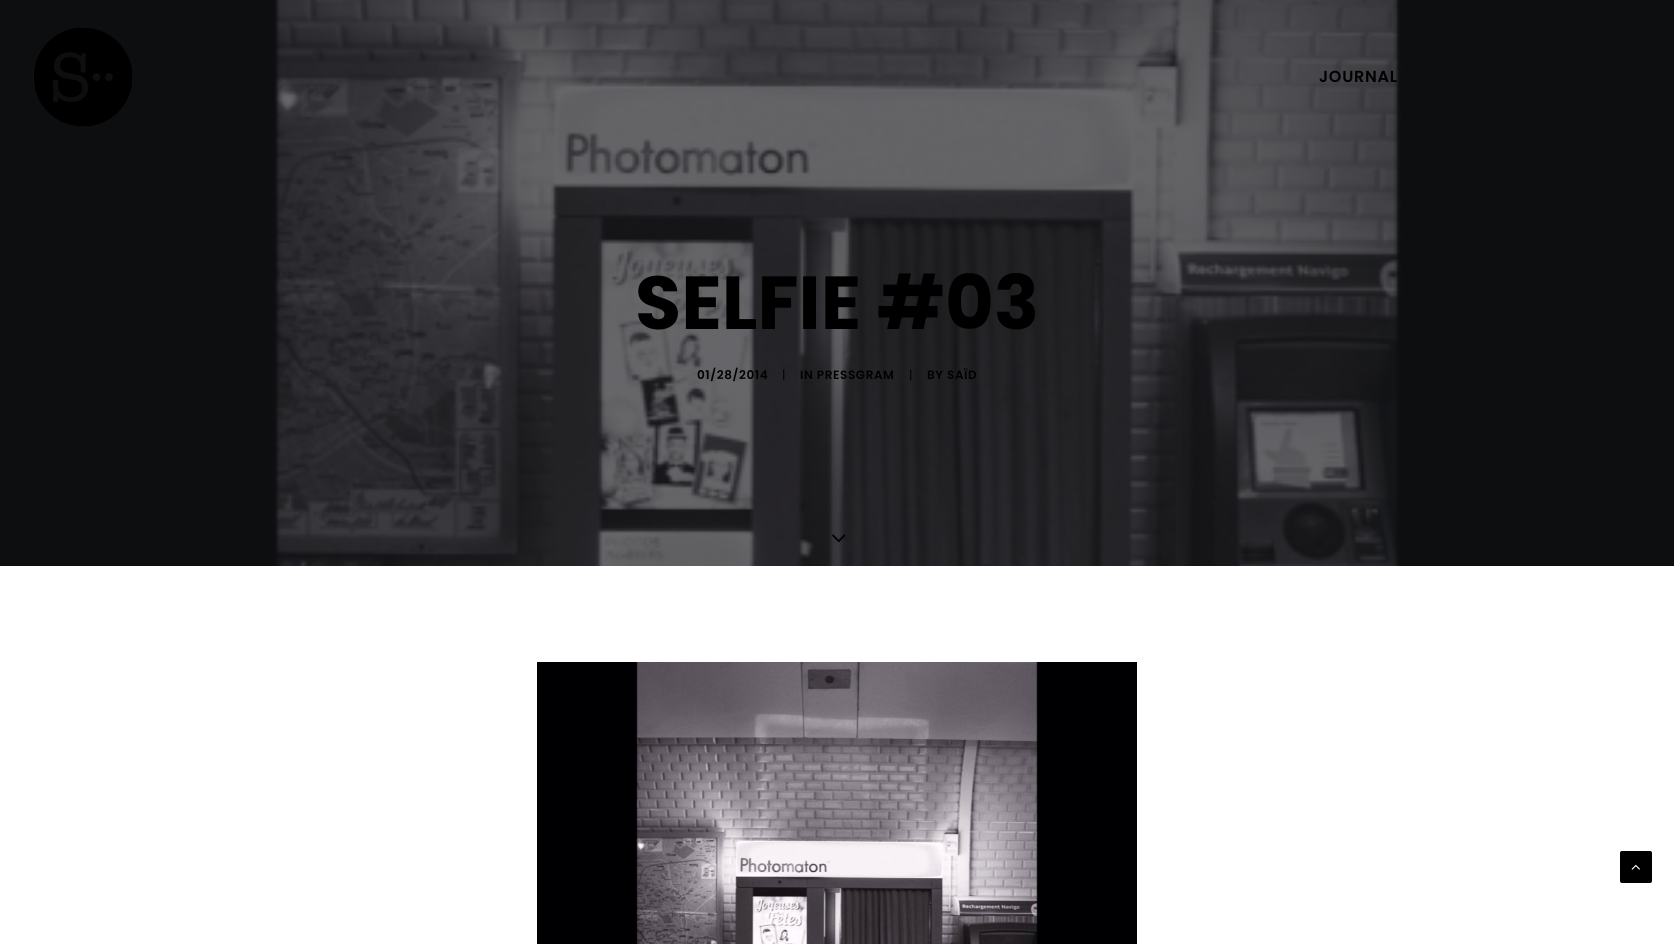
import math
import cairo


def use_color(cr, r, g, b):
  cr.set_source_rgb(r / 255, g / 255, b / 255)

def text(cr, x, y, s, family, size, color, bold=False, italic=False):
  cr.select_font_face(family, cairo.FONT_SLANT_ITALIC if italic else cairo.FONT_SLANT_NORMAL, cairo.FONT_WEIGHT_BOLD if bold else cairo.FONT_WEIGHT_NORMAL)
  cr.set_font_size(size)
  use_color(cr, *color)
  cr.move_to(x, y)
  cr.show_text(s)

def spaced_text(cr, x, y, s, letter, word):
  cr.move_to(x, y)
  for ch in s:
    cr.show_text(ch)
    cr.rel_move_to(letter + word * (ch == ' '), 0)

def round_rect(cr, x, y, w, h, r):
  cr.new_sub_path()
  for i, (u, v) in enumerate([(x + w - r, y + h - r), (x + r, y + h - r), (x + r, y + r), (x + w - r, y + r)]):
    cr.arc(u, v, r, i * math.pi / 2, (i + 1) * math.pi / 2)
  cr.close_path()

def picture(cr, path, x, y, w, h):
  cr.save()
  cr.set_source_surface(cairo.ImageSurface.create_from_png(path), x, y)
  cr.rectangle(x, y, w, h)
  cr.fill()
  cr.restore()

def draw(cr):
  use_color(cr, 255, 255, 255)
  cr.paint()
  picture(cr, "img_02.png", 0, 0, 1674, 566)
  picture(cr, "img_01.png", 33, 27, 100, 100)
  picture(cr, "img_03.png", 832, 534, 14, 9)
  picture(cr, "img_04.png", 537, 662, 600, 282)
  use_color(cr, 0, 0, 0)
  round_rect(cr, 1620.5, 851.5, 31, 31, 1.5)
  cr.fill_preserve()
  cr.set_line_width(1)
  cr.stroke()
  picture(cr, "img_05.png", 1631, 864, 9, 6)
  cr.select_font_face("Poppins SemiBold")
  cr.set_font_size(16)
  spaced_text(cr, 1319, 82, "JOURNAL", 0.75, 0)
  text(cr, 635, 329, "SELFIE #03", "Poppins", 75, (0, 0, 0), bold=True)
  cr.select_font_face("Poppins SemiBold")
  cr.set_font_size(12)
  spaced_text(cr, 697, 379, "01/28/2014", 0.6, 0)
  cr.select_font_face("Poppins")
  spaced_text(cr, 782, 379, "|", 0.6, 0)
  cr.select_font_face("Poppins SemiBold")
  spaced_text(cr, 800, 379, "IN PRESSGRAM", 0.6, 0)
  cr.select_font_face("Poppins")
  spaced_text(cr, 909, 379, "|", 0.6, 0)
  cr.select_font_face("Poppins SemiBold")
  spaced_text(cr, 927, 379, "BY SAÏD", 0.6, 0)


surface = cairo.ImageSurface(cairo.FORMAT_RGB24, 1674, 944)
cr = cairo.Context(surface)
options = cairo.FontOptions()
options.set_hint_metrics(cairo.HINT_METRICS_OFF)
options.set_hint_style(cairo.HINT_STYLE_NONE)
cr.set_font_options(options)
cr.set_miter_limit(4)
draw(cr)
surface.write_to_png("out.png")
